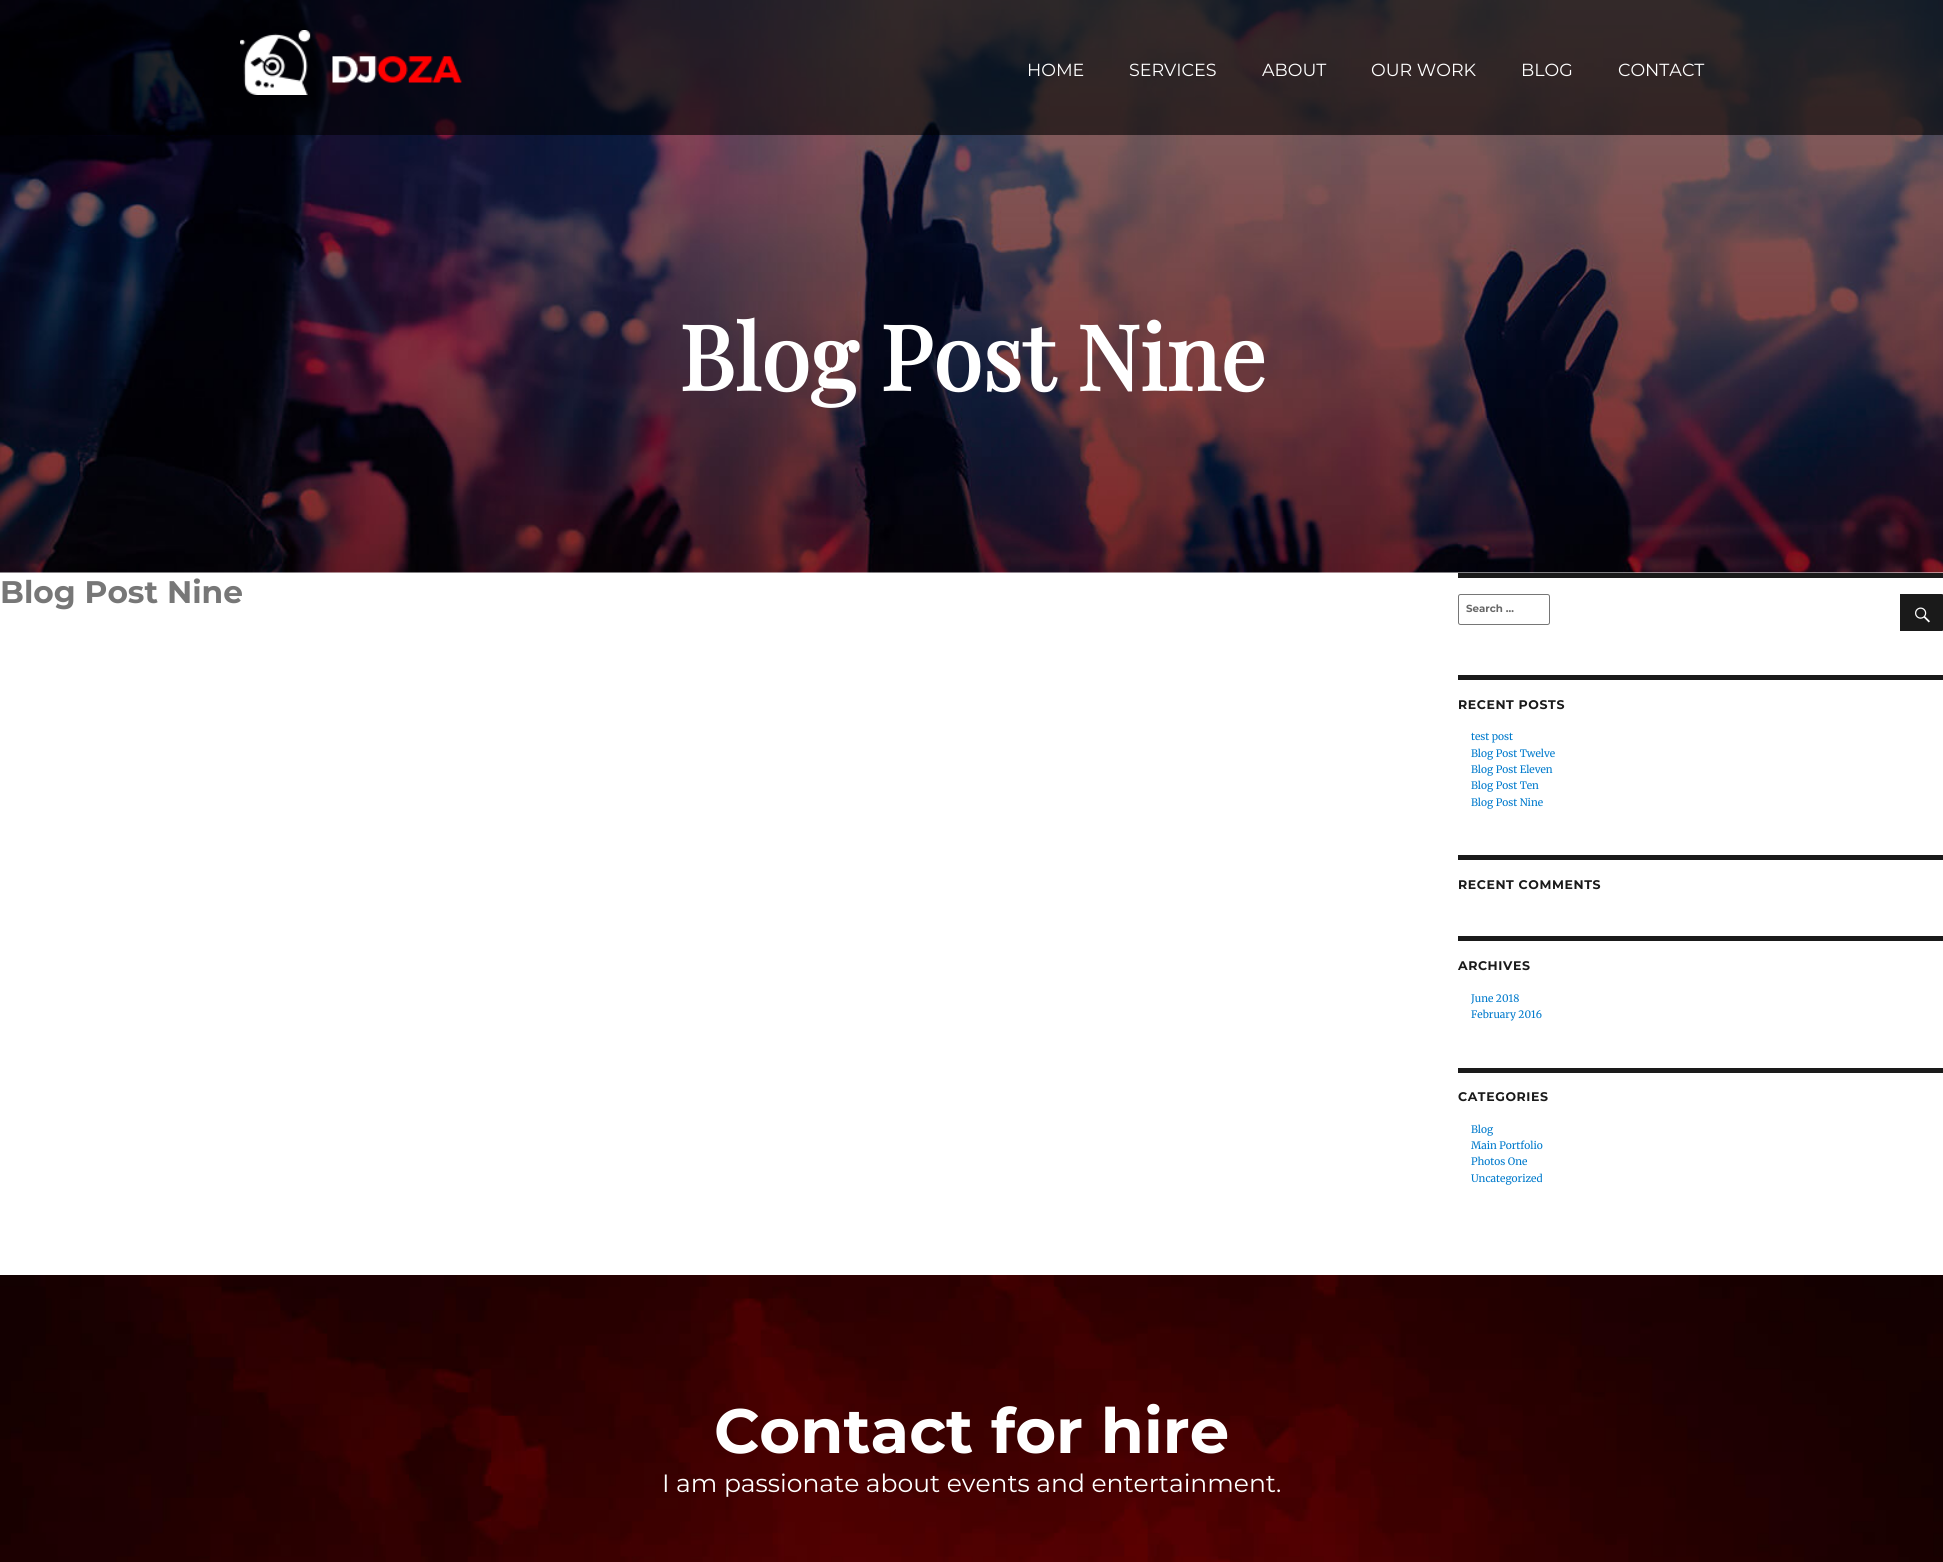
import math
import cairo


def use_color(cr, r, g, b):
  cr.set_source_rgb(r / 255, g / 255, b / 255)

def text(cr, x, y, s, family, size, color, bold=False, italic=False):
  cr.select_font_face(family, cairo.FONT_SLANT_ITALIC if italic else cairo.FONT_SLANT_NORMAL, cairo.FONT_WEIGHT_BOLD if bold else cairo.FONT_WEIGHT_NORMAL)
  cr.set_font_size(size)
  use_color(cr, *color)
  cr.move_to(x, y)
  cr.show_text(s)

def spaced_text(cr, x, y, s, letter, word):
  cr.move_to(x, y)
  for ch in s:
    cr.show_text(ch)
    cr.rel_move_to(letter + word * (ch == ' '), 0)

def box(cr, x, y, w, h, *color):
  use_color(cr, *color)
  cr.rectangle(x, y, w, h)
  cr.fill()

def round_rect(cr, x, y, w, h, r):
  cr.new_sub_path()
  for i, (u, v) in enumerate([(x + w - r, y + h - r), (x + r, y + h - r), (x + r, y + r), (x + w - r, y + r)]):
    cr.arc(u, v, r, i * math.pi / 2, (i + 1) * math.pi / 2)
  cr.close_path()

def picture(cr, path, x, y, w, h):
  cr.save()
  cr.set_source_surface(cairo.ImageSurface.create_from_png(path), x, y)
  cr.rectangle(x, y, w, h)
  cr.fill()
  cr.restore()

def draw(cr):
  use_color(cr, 255, 255, 255)
  cr.paint()
  picture(cr, "img_01.png", 0, 0, 1943, 573)
  cr.set_source_rgba(0, 0, 0, 0.6)
  cr.rectangle(0, 0, 1943, 135)
  cr.fill()
  picture(cr, "img_02.png", 240, 30, 222, 65)
  box(cr, 1458, 573, 485, 5, 26, 26, 26)
  round_rect(cr, 1458.5, 594.5, 91, 30, 2)
  use_color(cr, 118, 118, 118)
  cr.set_line_width(1)
  cr.stroke()
  use_color(cr, 26, 26, 26)
  cr.new_path()
  cr.move_to(1900, 594)
  cr.line_to(1941.5, 594)
  cr.curve_to(1943, 594, 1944, 595, 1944, 596.5)
  cr.line_to(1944, 628.5)
  cr.curve_to(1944, 630, 1943, 631, 1941.5, 631)
  cr.line_to(1900, 631)
  cr.close_path()
  cr.fill()
  picture(cr, "img_03.png", 1915, 607, 15, 16)
  box(cr, 1458, 675, 485, 5, 26, 26, 26)
  box(cr, 1458, 855, 485, 5, 26, 26, 26)
  box(cr, 1458, 936, 485, 5, 26, 26, 26)
  box(cr, 1458, 1068, 485, 5, 26, 26, 26)
  picture(cr, "img_04.png", 0, 1275, 1943, 287)
  text(cr, 1027, 76, "HOME", "Montserrat", 17.5, (255, 255, 255))
  text(cr, 1129, 76, "SERVICES", "Montserrat", 17.5, (255, 255, 255))
  text(cr, 1262, 76, "ABOUT", "Montserrat", 17.5, (255, 255, 255))
  text(cr, 1371, 76, "OUR WORK", "Montserrat", 17.5, (255, 255, 255))
  text(cr, 1521, 76, "BLOG", "Montserrat", 17.5, (255, 255, 255))
  text(cr, 1618, 76, "CONTACT", "Montserrat", 17.5, (255, 255, 255))
  text(cr, 679, 391, "Blog Post Nine", "Playfair Display", 90, (255, 255, 255), bold=True)
  text(cr, 0, 603, "Blog Post Nine", "Montserrat", 31.25, (119, 119, 119), bold=True)
  text(cr, 1466, 612, "Search …", "Montserrat", 10.25, (104, 104, 104), bold=True)
  cr.set_font_size(12.5)
  use_color(cr, 26, 26, 26)
  spaced_text(cr, 1458, 709, "RECENT POSTS", 0.6, 0)
  text(cr, 1471, 740, "test post", "Merriweather", 10.25, (0, 122, 204))
  text(cr, 1471, 757, "Blog Post Twelve", "Merriweather", 10.25, (0, 122, 204))
  text(cr, 1471, 773, "Blog Post Eleven", "Merriweather", 10.25, (0, 122, 204))
  text(cr, 1471, 789, "Blog Post Ten", "Merriweather", 10.25, (0, 122, 204))
  text(cr, 1471, 806, "Blog Post Nine", "Merriweather", 10.25, (0, 122, 204))
  cr.select_font_face("Montserrat", cairo.FONT_SLANT_NORMAL, cairo.FONT_WEIGHT_BOLD)
  cr.set_font_size(12.5)
  use_color(cr, 26, 26, 26)
  spaced_text(cr, 1458, 889, "RECENT COMMENTS", 0.6, 0)
  spaced_text(cr, 1458, 970, "ARCHIVES", 0.6, 0)
  text(cr, 1471, 1002, "June 2018", "Merriweather", 10.25, (0, 122, 204))
  text(cr, 1471, 1018, "February 2016", "Merriweather", 10.25, (0, 122, 204))
  cr.select_font_face("Montserrat", cairo.FONT_SLANT_NORMAL, cairo.FONT_WEIGHT_BOLD)
  cr.set_font_size(12.5)
  use_color(cr, 26, 26, 26)
  spaced_text(cr, 1458, 1101, "CATEGORIES", 0.6, 0)
  text(cr, 1471, 1133, "Blog", "Merriweather", 10.25, (0, 122, 204))
  text(cr, 1471, 1149, "Main Portfolio", "Merriweather", 10.25, (0, 122, 204))
  text(cr, 1471, 1165, "Photos One", "Merriweather", 10.25, (0, 122, 204))
  text(cr, 1471, 1182, "Uncategorized", "Merriweather", 10.25, (0, 122, 204))
  text(cr, 714, 1453, "Contact for hire", "Montserrat", 62.5, (255, 255, 255), bold=True)
  text(cr, 662, 1492, "I am passionate about events and entertainment.", "Montserrat", 25, (255, 255, 255))


surface = cairo.ImageSurface(cairo.FORMAT_RGB24, 1943, 1562)
cr = cairo.Context(surface)
options = cairo.FontOptions()
options.set_hint_metrics(cairo.HINT_METRICS_OFF)
options.set_hint_style(cairo.HINT_STYLE_NONE)
cr.set_font_options(options)
cr.set_miter_limit(4)
draw(cr)
surface.write_to_png("out.png")
